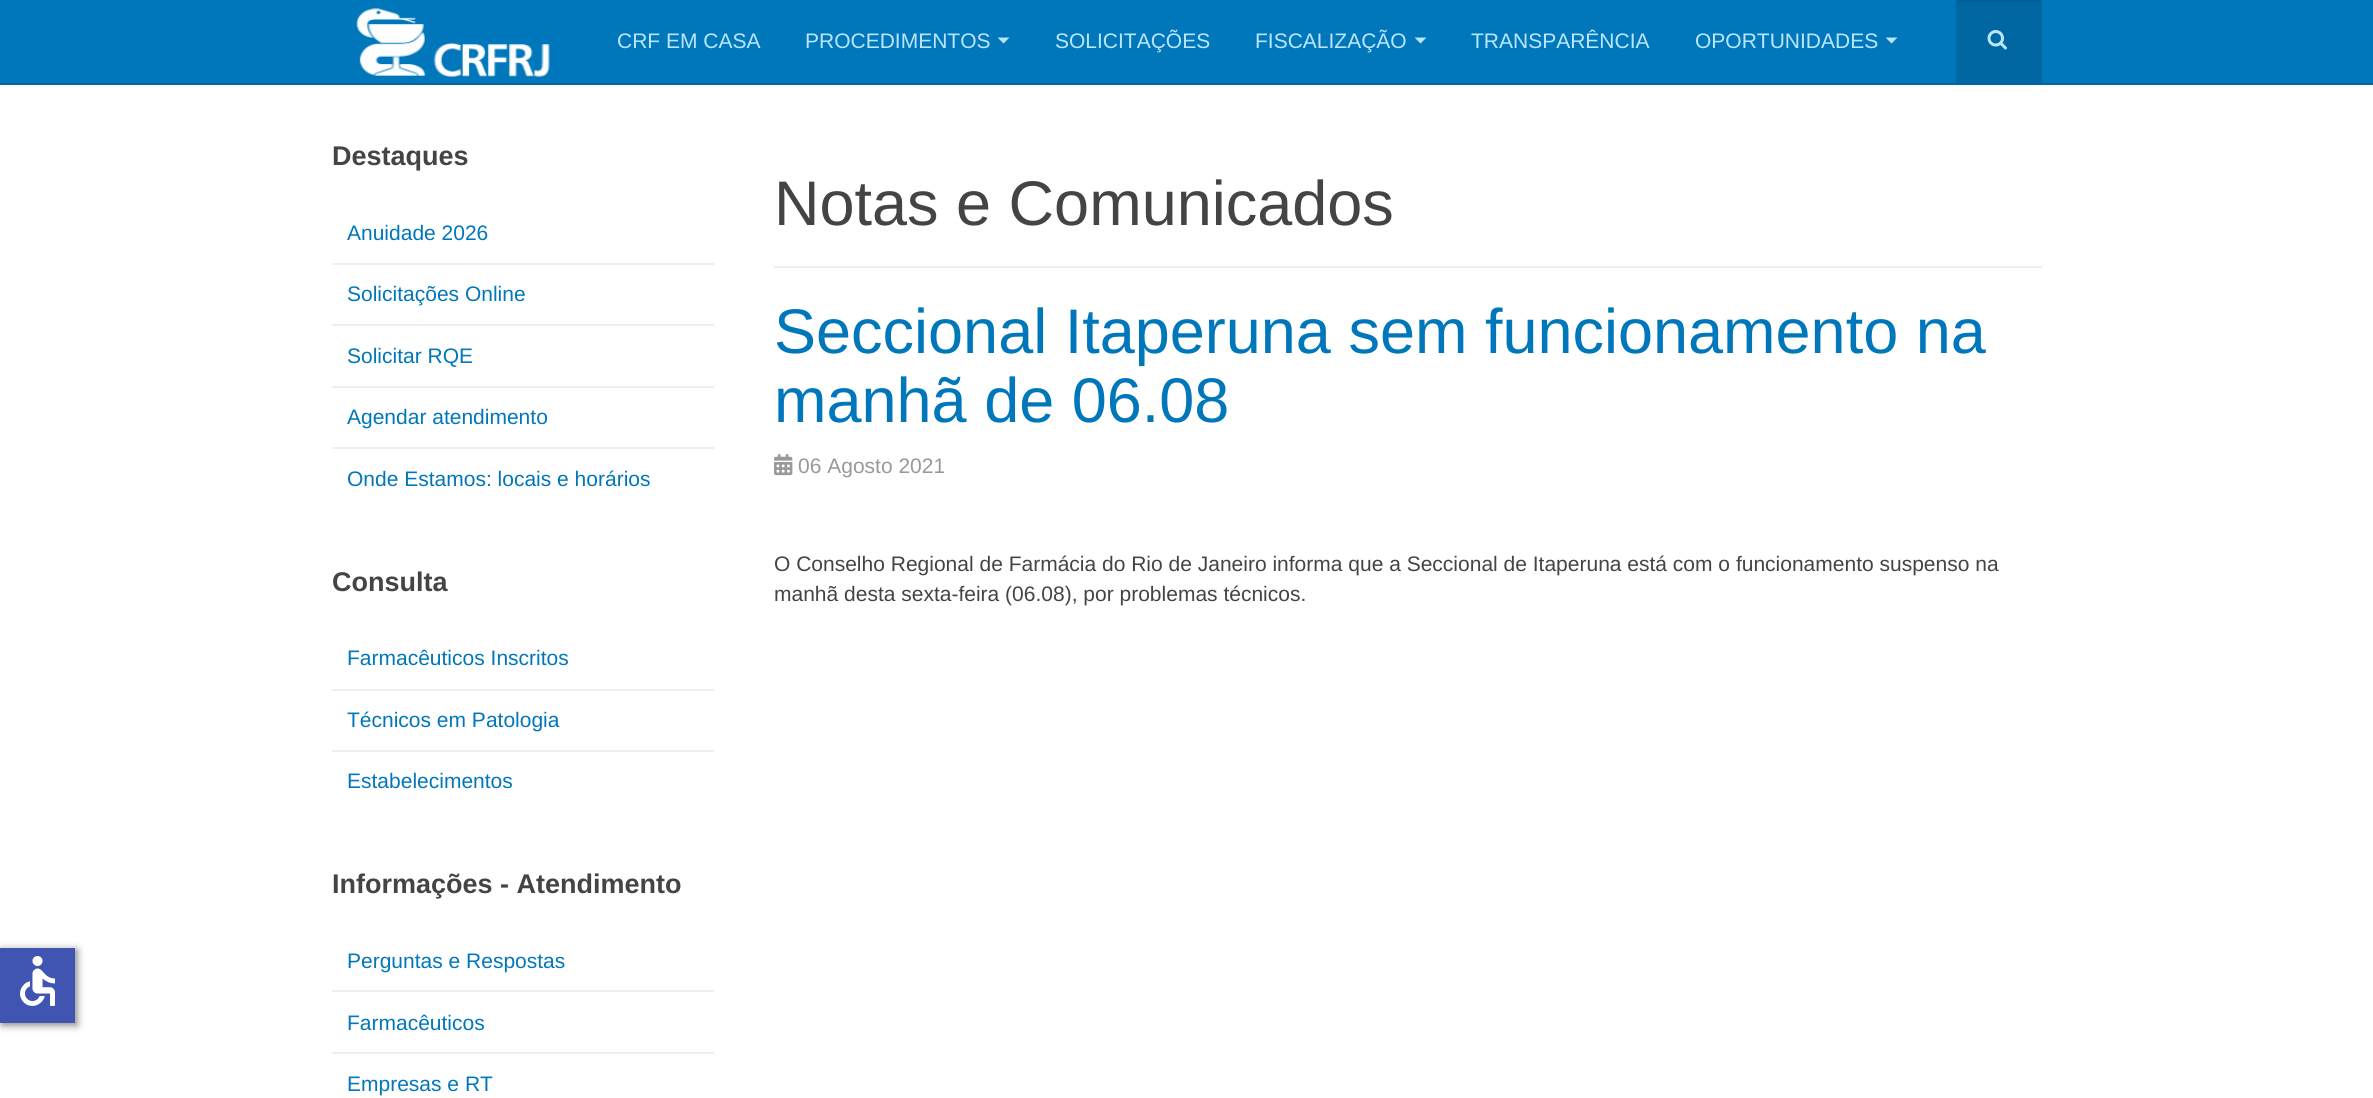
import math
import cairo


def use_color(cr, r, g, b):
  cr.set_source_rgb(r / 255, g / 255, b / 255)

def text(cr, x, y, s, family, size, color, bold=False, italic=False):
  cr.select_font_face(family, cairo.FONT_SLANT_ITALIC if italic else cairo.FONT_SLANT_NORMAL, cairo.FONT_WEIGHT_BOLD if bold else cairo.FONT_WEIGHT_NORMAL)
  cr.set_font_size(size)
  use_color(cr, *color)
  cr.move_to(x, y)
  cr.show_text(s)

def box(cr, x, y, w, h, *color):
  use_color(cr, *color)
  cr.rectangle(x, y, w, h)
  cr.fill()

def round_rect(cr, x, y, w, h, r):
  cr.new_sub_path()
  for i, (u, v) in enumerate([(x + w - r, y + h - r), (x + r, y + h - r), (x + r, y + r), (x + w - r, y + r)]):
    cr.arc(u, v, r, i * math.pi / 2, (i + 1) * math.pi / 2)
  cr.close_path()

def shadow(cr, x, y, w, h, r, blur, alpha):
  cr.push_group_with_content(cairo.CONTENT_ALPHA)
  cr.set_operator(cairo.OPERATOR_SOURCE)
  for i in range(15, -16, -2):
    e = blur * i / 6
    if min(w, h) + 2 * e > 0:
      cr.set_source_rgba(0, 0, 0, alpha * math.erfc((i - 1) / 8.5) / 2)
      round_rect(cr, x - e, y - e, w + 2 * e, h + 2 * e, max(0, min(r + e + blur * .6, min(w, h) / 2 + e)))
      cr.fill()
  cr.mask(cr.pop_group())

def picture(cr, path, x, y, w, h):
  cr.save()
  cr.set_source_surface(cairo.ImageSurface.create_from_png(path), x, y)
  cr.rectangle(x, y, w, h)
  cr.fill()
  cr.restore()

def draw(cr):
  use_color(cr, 255, 255, 255)
  cr.paint()
  use_color(cr, 0, 0, 0)
  shadow(cr, 2, 950, 75, 75, 0, 4, 0.5)
  box(cr, 0, 948, 75, 75, 64, 84, 178)
  picture(cr, "img_01.png", 20, 956, 35, 50)
  box(cr, 0, 0, 2373, 83, 0, 119, 187)
  box(cr, 0, 83, 2373, 2, 0, 103, 162)
  picture(cr, "img_02.png", 356, 8, 194, 69)
  box(cr, 1956, 0, 86, 83, 0, 103, 162)
  box(cr, 1958, 0, 82, 2, 0, 95, 150)
  picture(cr, "img_03.png", 1987, 30, 20, 20)
  use_color(cr, 187, 230, 255)
  cr.new_path()
  cr.move_to(997.5, 37.5)
  cr.line_to(1009.5, 37.5)
  cr.line_to(1003.5, 43.5)
  cr.close_path()
  cr.fill()
  cr.new_path()
  cr.move_to(1414.5, 37.5)
  cr.line_to(1426.5, 37.5)
  cr.line_to(1420.5, 43.5)
  cr.close_path()
  cr.fill()
  cr.new_path()
  cr.move_to(1885.5, 37.5)
  cr.line_to(1897.5, 37.5)
  cr.line_to(1891.5, 43.5)
  cr.close_path()
  cr.fill()
  box(cr, 332, 263, 382, 2, 238, 238, 238)
  box(cr, 332, 324, 382, 2, 238, 238, 238)
  box(cr, 332, 386, 382, 2, 238, 238, 238)
  box(cr, 332, 447, 382, 2, 238, 238, 238)
  box(cr, 332, 689, 382, 2, 238, 238, 238)
  box(cr, 332, 750, 382, 2, 238, 238, 238)
  box(cr, 332, 990, 382, 2, 238, 238, 238)
  box(cr, 332, 1052, 382, 2, 238, 238, 238)
  box(cr, 774, 266, 1268, 2, 238, 238, 238)
  picture(cr, "img_04.png", 774, 454, 19, 22)
  text(cr, 617, 48, "CRF EM CASA", "Liberation Sans", 21, (187, 230, 255))
  text(cr, 805, 48, "PROCEDIMENTOS", "Liberation Sans", 21, (187, 230, 255))
  text(cr, 1055, 48, "SOLICITAÇÕES", "Liberation Sans", 21, (187, 230, 255))
  text(cr, 1255, 48, "FISCALIZAÇÃO", "Liberation Sans", 21, (187, 230, 255))
  text(cr, 1471, 48, "TRANSPARÊNCIA", "Liberation Sans", 21, (187, 230, 255))
  text(cr, 1695, 48, "OPORTUNIDADES", "Liberation Sans", 21, (187, 230, 255))
  text(cr, 332, 165, "Destaques", "Liberation Sans", 27, (68, 68, 68), bold=True)
  text(cr, 347, 240, "Anuidade 2026", "Liberation Sans", 21, (0, 119, 187))
  text(cr, 347, 301, "Solicitações Online", "Liberation Sans", 21, (0, 119, 187))
  text(cr, 347, 363, "Solicitar RQE", "Liberation Sans", 21, (0, 119, 187))
  text(cr, 347, 424, "Agendar atendimento", "Liberation Sans", 21, (0, 119, 187))
  text(cr, 347, 486, "Onde Estamos: locais e horários", "Liberation Sans", 21, (0, 119, 187))
  text(cr, 332, 591, "Consulta", "Liberation Sans", 27, (68, 68, 68), bold=True)
  text(cr, 347, 665, "Farmacêuticos Inscritos", "Liberation Sans", 21, (0, 119, 187))
  text(cr, 347, 727, "Técnicos em Patologia", "Liberation Sans", 21, (0, 119, 187))
  text(cr, 347, 788, "Estabelecimentos", "Liberation Sans", 21, (0, 119, 187))
  text(cr, 332, 893, "Informações - Atendimento", "Liberation Sans", 27, (68, 68, 68), bold=True)
  text(cr, 347, 968, "Perguntas e Respostas", "Liberation Sans", 21, (0, 119, 187))
  text(cr, 347, 1030, "Farmacêuticos", "Liberation Sans", 21, (0, 119, 187))
  text(cr, 347, 1091, "Empresas e RT", "Liberation Sans", 21, (0, 119, 187))
  text(cr, 774, 225, "Notas e Comunicados", "Liberation Sans", 63, (68, 68, 68))
  text(cr, 774, 353, "Seccional Itaperuna sem funcionamento na", "Liberation Sans", 63, (0, 119, 187))
  text(cr, 774, 422, "manhã de 06.08", "Liberation Sans", 63, (0, 119, 187))
  text(cr, 798, 473, "06 Agosto 2021", "Liberation Sans", 21, (153, 153, 153))
  text(cr, 774, 571, "O Conselho Regional de Farmácia do Rio de Janeiro informa que a Seccional de Itaperuna está com o funcionamento suspenso na", "Liberation Sans", 21, (68, 68, 68))
  text(cr, 774, 601, "manhã desta sexta-feira (06.08), por problemas técnicos.", "Liberation Sans", 21, (68, 68, 68))


surface = cairo.ImageSurface(cairo.FORMAT_RGB24, 2373, 1098)
cr = cairo.Context(surface)
options = cairo.FontOptions()
options.set_hint_metrics(cairo.HINT_METRICS_OFF)
options.set_hint_style(cairo.HINT_STYLE_NONE)
cr.set_font_options(options)
cr.set_miter_limit(4)
draw(cr)
surface.write_to_png("out.png")
